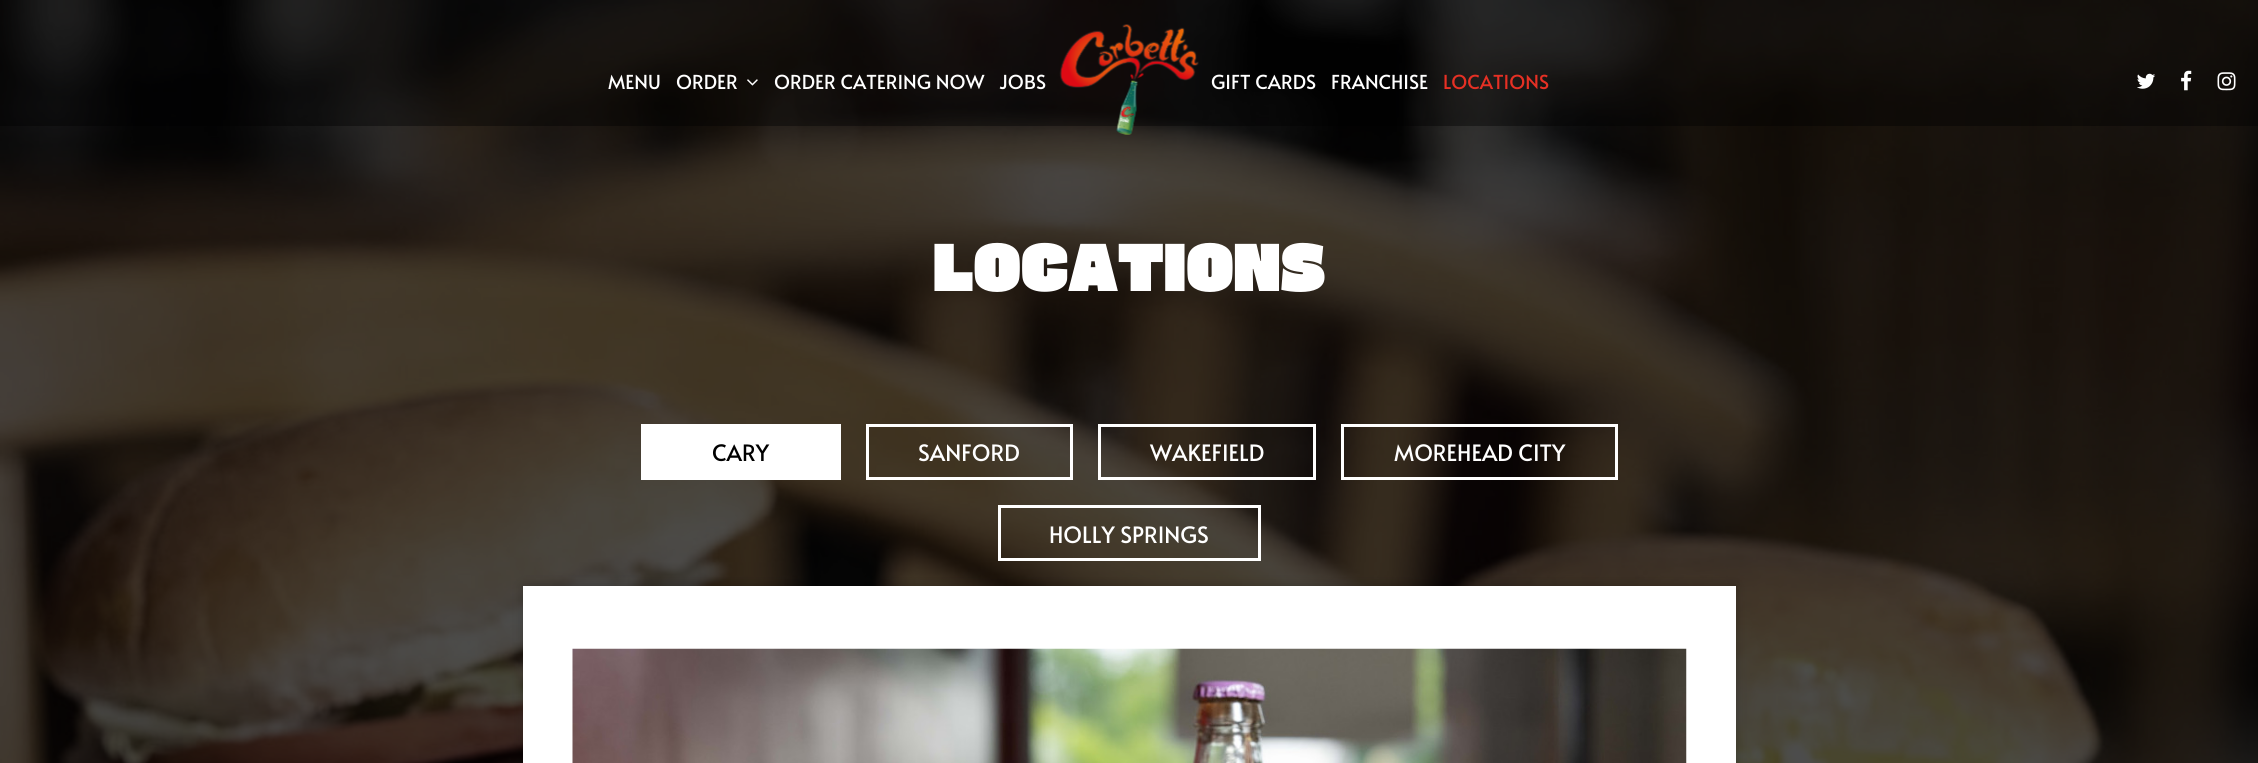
import math
import cairo


def use_color(cr, r, g, b):
  cr.set_source_rgb(r / 255, g / 255, b / 255)

def text(cr, x, y, s, family, size, color, bold=False, italic=False):
  cr.select_font_face(family, cairo.FONT_SLANT_ITALIC if italic else cairo.FONT_SLANT_NORMAL, cairo.FONT_WEIGHT_BOLD if bold else cairo.FONT_WEIGHT_NORMAL)
  cr.set_font_size(size)
  use_color(cr, *color)
  cr.move_to(x, y)
  cr.show_text(s)

def box(cr, x, y, w, h, *color):
  use_color(cr, *color)
  cr.rectangle(x, y, w, h)
  cr.fill()

def round_rect(cr, x, y, w, h, r):
  cr.new_sub_path()
  for i, (u, v) in enumerate([(x + w - r, y + h - r), (x + r, y + h - r), (x + r, y + r), (x + w - r, y + r)]):
    cr.arc(u, v, r, i * math.pi / 2, (i + 1) * math.pi / 2)
  cr.close_path()

def shadow(cr, x, y, w, h, r, blur, alpha):
  cr.push_group_with_content(cairo.CONTENT_ALPHA)
  cr.set_operator(cairo.OPERATOR_SOURCE)
  for i in range(15, -16, -2):
    e = blur * i / 6
    if min(w, h) + 2 * e > 0:
      cr.set_source_rgba(0, 0, 0, alpha * math.erfc((i - 1) / 8.5) / 2)
      round_rect(cr, x - e, y - e, w + 2 * e, h + 2 * e, max(0, min(r + e + blur * .6, min(w, h) / 2 + e)))
      cr.fill()
  cr.mask(cr.pop_group())

def picture(cr, path, x, y, w, h):
  cr.save()
  cr.set_source_surface(cairo.ImageSurface.create_from_png(path), x, y)
  cr.rectangle(x, y, w, h)
  cr.fill()
  cr.restore()

def draw(cr):
  use_color(cr, 0, 0, 0)
  cr.paint()
  picture(cr, "img_01.png", 0, 0, 2258, 763)
  cr.set_source_rgba(0, 0, 0, 0.4)
  cr.rectangle(0, 0, 2258, 126)
  cr.fill()
  picture(cr, "img_02.png", 747, 79, 11, 7)
  picture(cr, "img_03.png", 1059, 24, 140, 111)
  picture(cr, "img_04.png", 2137, 73, 19, 16)
  picture(cr, "img_05.png", 2181, 70, 11, 21)
  picture(cr, "img_06.png", 2217, 72, 19, 19)
  box(cr, 641, 424, 200, 56, 255, 255, 255)
  cr.rectangle(867.5, 425.5, 204, 53)
  cr.set_line_width(3)
  cr.stroke()
  cr.rectangle(1099.5, 425.5, 215, 53)
  cr.stroke()
  cr.rectangle(1342.5, 425.5, 274, 53)
  cr.stroke()
  cr.rectangle(999.5, 506.5, 260, 53)
  cr.stroke()
  use_color(cr, 0, 0, 0)
  shadow(cr, 523, 586, 1213, 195, 0, 6, 0.2)
  box(cr, 523, 586, 1213, 177, 255, 255, 255)
  picture(cr, "img_07.png", 572, 648, 1115, 115)
  text(cr, 608, 89, "MENU", "Alata", 19.25, (255, 255, 255))
  text(cr, 676, 89, "ORDER", "Alata", 19.25, (255, 255, 255))
  text(cr, 774, 89, "ORDER CATERING NOW", "Alata", 19.25, (255, 255, 255))
  text(cr, 999, 89, "JOBS", "Alata", 19.25, (255, 255, 255))
  text(cr, 1211, 89, "GIFT CARDS", "Alata", 19.25, (255, 255, 255))
  text(cr, 1331, 89, "FRANCHISE", "Alata", 19.25, (255, 255, 255))
  text(cr, 1443, 89, "LOCATIONS", "Alata", 19.25, (230, 48, 36))
  text(cr, 933, 291, "LOCATIONS", "Gasoek One", 61.25, (255, 255, 255))
  text(cr, 712, 461, "CARY", "Alata", 22.5, (0, 0, 0))
  text(cr, 918, 461, "SANFORD", "Alata", 22.5, (255, 255, 255))
  text(cr, 1150, 461, "WAKEFIELD", "Alata", 22.5, (255, 255, 255))
  text(cr, 1394, 461, "MOREHEAD CITY", "Alata", 22.5, (255, 255, 255))
  text(cr, 1049, 543, "HOLLY SPRINGS", "Alata", 22.5, (255, 255, 255))


surface = cairo.ImageSurface(cairo.FORMAT_RGB24, 2258, 763)
cr = cairo.Context(surface)
options = cairo.FontOptions()
options.set_hint_metrics(cairo.HINT_METRICS_OFF)
options.set_hint_style(cairo.HINT_STYLE_NONE)
cr.set_font_options(options)
cr.set_miter_limit(4)
draw(cr)
surface.write_to_png("out.png")
